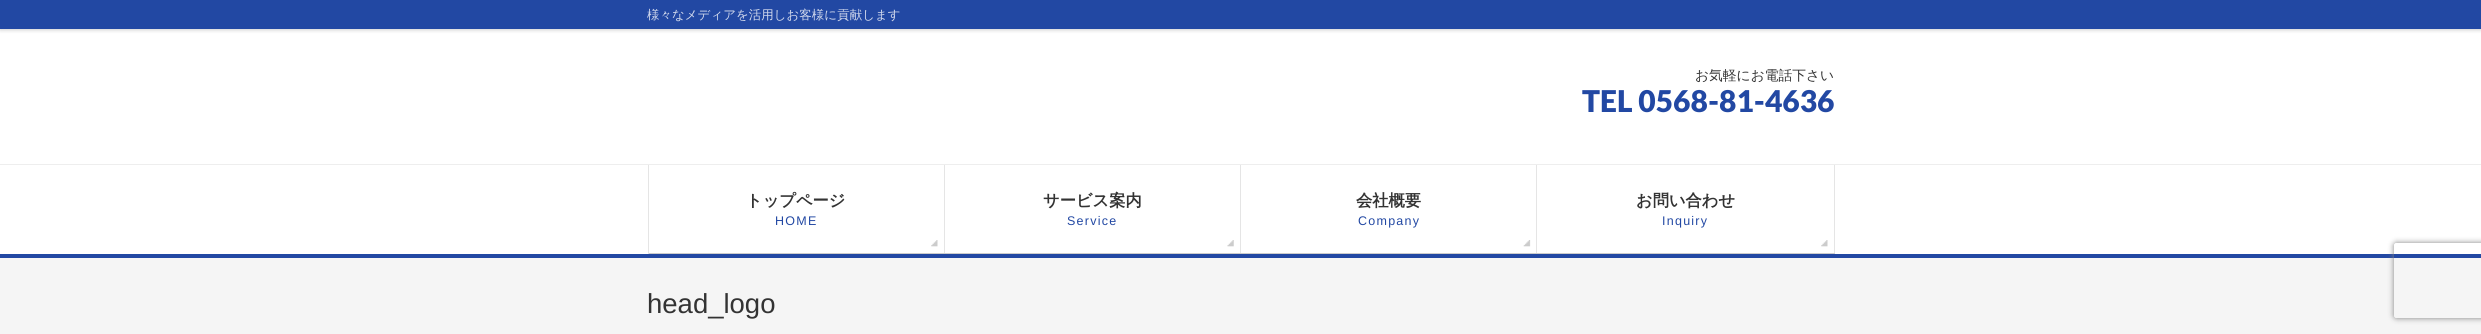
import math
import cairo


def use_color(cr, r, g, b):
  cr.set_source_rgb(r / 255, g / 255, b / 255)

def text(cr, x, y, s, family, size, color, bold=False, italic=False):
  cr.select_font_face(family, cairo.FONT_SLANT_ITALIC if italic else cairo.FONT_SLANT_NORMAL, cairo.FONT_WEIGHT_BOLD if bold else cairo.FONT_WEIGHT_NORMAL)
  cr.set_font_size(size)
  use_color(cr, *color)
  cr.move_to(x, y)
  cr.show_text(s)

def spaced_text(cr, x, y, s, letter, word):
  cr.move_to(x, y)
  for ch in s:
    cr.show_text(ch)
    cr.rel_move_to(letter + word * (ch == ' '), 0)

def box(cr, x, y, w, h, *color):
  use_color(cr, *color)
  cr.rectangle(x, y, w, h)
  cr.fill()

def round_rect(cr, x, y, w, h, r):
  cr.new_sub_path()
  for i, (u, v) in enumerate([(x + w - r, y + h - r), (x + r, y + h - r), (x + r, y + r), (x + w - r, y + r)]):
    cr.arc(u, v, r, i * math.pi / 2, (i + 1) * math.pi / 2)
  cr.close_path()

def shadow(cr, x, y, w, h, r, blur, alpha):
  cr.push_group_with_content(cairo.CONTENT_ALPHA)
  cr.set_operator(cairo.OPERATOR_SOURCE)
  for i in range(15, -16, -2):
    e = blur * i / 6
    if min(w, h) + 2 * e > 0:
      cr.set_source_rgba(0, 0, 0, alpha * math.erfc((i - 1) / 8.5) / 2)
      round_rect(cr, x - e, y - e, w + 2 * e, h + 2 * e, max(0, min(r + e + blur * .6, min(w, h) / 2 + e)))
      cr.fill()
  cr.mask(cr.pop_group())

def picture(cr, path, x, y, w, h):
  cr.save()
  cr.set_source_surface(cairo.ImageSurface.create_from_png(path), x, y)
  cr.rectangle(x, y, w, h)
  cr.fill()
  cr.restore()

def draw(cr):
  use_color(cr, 255, 255, 255)
  cr.paint()
  use_color(cr, 0, 0, 0)
  shadow(cr, 0, 1, 2481, 29, 0, 2, 0.2)
  box(cr, 0, 0, 2481, 29, 34, 72, 163)
  box(cr, 0, 164, 2481, 1, 238, 238, 238)
  box(cr, 0, 254, 2481, 4, 34, 72, 163)
  box(cr, 648, 165, 1, 89, 229, 229, 229)
  picture(cr, "img_01.png", 931, 240, 7, 7)
  box(cr, 944, 165, 1, 89, 229, 229, 229)
  box(cr, 649, 253, 296, 1, 204, 204, 204)
  picture(cr, "img_02.png", 1227, 240, 7, 7)
  box(cr, 1240, 165, 1, 89, 229, 229, 229)
  box(cr, 945, 253, 296, 1, 204, 204, 204)
  picture(cr, "img_03.png", 1523, 240, 8, 7)
  box(cr, 1536, 165, 1, 89, 229, 229, 229)
  box(cr, 1241, 253, 297, 1, 204, 204, 204)
  picture(cr, "img_01.png", 1821, 240, 7, 7)
  box(cr, 1834, 165, 1, 89, 229, 229, 229)
  box(cr, 1538, 253, 297, 1, 204, 204, 204)
  box(cr, 0, 258, 2481, 76, 245, 245, 245)
  cr.save()
  cr.set_fill_rule(cairo.FILL_RULE_EVEN_ODD)
  cr.new_path()
  cr.move_to(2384, 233)
  cr.line_to(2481, 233)
  cr.line_to(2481, 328)
  cr.line_to(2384, 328)
  cr.close_path()
  cr.move_to(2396.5, 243)
  cr.line_to(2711.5, 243)
  cr.curve_to(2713, 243, 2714, 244, 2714, 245.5)
  cr.line_to(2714, 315.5)
  cr.curve_to(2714, 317, 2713, 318, 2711.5, 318)
  cr.line_to(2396.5, 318)
  cr.curve_to(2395, 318, 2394, 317, 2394, 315.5)
  cr.line_to(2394, 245.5)
  cr.curve_to(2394, 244, 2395, 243, 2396.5, 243)
  cr.close_path()
  cr.clip()
  use_color(cr, 128, 128, 128)
  shadow(cr, 2394, 243, 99, 75, 2.5, 3, 1)
  cr.restore()
  text(cr, 647, 19, "様々なメディアを活用しお客様に貢献します", "WenQuanYi Zen Hei Medium", 12.5, (211, 218, 237))
  text(cr, 1695, 80, "お気軽にお電話下さい", "WenQuanYi Zen Hei Medium", 13.75, (51, 51, 51))
  text(cr, 1582, 112, "TEL 0568-81-4636", "Lato Black", 30, (34, 72, 163))
  text(cr, 746, 206, "トップページ", "WenQuanYi Zen Hei", 16.25, (51, 51, 51), bold=True)
  cr.select_font_face("Liberation Sans")
  cr.set_font_size(12.5)
  use_color(cr, 34, 72, 163)
  spaced_text(cr, 775, 225, "HOME", 1.25, 0)
  text(cr, 1043, 206, "サービス案内", "WenQuanYi Zen Hei", 16.25, (51, 51, 51), bold=True)
  cr.select_font_face("Liberation Sans")
  cr.set_font_size(12.5)
  use_color(cr, 34, 72, 163)
  spaced_text(cr, 1067, 225, "Service", 1.25, 0)
  text(cr, 1356, 206, "会社概要", "WenQuanYi Zen Hei", 16.25, (51, 51, 51), bold=True)
  cr.select_font_face("Liberation Sans")
  cr.set_font_size(12.5)
  use_color(cr, 34, 72, 163)
  spaced_text(cr, 1358, 225, "Company", 1.25, 0)
  text(cr, 1636, 206, "お問い合わせ", "WenQuanYi Zen Hei", 16.25, (51, 51, 51), bold=True)
  cr.select_font_face("Liberation Sans")
  cr.set_font_size(12.5)
  use_color(cr, 34, 72, 163)
  spaced_text(cr, 1662, 225, "Inquiry", 1.25, 0)
  text(cr, 647, 313, "head_logo", "Liberation Sans", 27.5, (51, 51, 51))


surface = cairo.ImageSurface(cairo.FORMAT_RGB24, 2481, 334)
cr = cairo.Context(surface)
options = cairo.FontOptions()
options.set_hint_metrics(cairo.HINT_METRICS_OFF)
options.set_hint_style(cairo.HINT_STYLE_NONE)
cr.set_font_options(options)
cr.set_miter_limit(4)
draw(cr)
surface.write_to_png("out.png")
